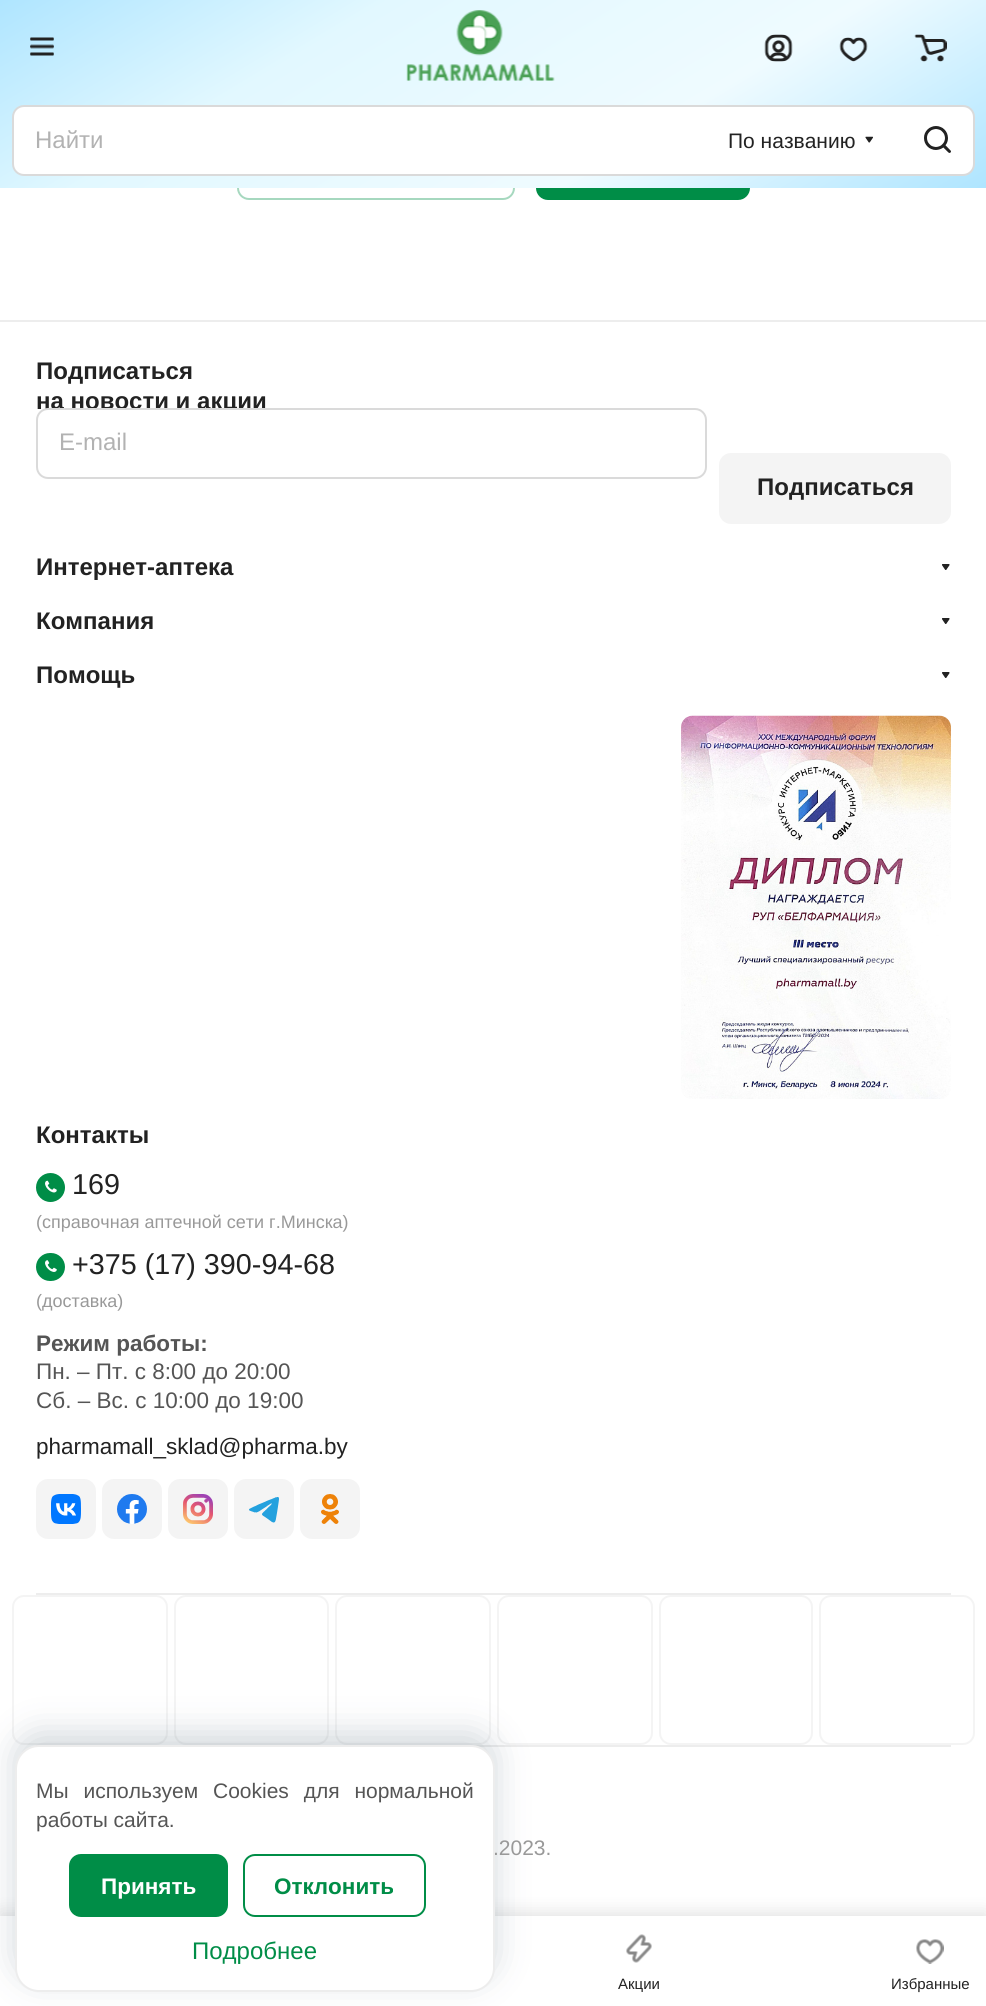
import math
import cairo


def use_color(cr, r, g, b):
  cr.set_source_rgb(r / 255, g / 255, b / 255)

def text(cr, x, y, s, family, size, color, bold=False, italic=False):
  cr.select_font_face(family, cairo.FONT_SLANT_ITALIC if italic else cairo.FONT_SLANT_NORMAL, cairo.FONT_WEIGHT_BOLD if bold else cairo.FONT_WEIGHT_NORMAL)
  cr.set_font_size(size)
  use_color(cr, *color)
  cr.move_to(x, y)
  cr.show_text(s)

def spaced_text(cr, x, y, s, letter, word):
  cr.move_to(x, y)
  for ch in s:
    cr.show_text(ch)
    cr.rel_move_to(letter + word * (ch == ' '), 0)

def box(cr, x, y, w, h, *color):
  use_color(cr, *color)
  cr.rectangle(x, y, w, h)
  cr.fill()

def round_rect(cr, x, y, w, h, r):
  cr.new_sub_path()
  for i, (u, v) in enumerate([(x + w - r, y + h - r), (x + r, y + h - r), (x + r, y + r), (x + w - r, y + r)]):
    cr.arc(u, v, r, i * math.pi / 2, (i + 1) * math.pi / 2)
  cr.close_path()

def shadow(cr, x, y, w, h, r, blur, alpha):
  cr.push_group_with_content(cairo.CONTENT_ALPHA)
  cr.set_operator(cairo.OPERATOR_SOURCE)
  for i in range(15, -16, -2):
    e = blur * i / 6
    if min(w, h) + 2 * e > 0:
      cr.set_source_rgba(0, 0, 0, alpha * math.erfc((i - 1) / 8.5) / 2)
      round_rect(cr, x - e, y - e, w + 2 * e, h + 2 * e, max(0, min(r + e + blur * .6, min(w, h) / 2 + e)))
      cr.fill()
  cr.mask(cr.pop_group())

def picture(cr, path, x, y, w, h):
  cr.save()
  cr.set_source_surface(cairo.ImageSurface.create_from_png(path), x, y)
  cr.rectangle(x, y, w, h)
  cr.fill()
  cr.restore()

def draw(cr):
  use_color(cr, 255, 255, 255)
  cr.paint()
  round_rect(cr, 238, 130, 276, 69, 11)
  use_color(cr, 166, 216, 191)
  cr.stroke()
  use_color(cr, 0, 141, 71)
  round_rect(cr, 537, 130, 212, 69, 11)
  cr.fill_preserve()
  cr.stroke()
  gradient = cairo.LinearGradient(321, -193, 666, 380)
  gradient.add_color_stop_rgba(0, 0.686, 0.898, 1, 1)
  gradient.add_color_stop_rgba(0.3, 0.886, 0.973, 1, 1)
  gradient.add_color_stop_rgba(0.67, 0.937, 0.984, 1, 1)
  gradient.add_color_stop_rgba(1, 0.686, 0.898, 1, 1)
  cr.set_source(gradient)
  cr.rectangle(0, 0, 986, 188)
  cr.fill()
  picture(cr, "img_01.png", 30, 37, 24, 19)
  picture(cr, "img_02.png", 406, 10, 149, 71)
  picture(cr, "img_03.png", 764, 34, 29, 28)
  picture(cr, "img_04.png", 839, 37, 29, 25)
  picture(cr, "img_05.png", 914, 34, 33, 28)
  use_color(cr, 255, 255, 255)
  round_rect(cr, 13, 106, 961, 69, 11)
  cr.fill_preserve()
  use_color(cr, 218, 218, 218)
  cr.stroke()
  picture(cr, "img_06.png", 865, 136, 8, 7)
  picture(cr, "img_07.png", 924, 126, 27, 27)
  box(cr, 0, 320, 986, 2, 237, 237, 237)
  use_color(cr, 244, 244, 244)
  round_rect(cr, 720, 454, 230, 69, 11)
  cr.fill_preserve()
  cr.stroke()
  picture(cr, "img_08.png", 942, 564, 8, 6)
  picture(cr, "img_08.png", 942, 618, 8, 6)
  picture(cr, "img_09.png", 942, 672, 8, 6)
  picture(cr, "img_10.png", 681, 715, 270, 384)
  use_color(cr, 0, 141, 71)
  cr.arc(50.5, 1187.5, 14.5, 0, 2 * math.pi)
  cr.fill()
  picture(cr, "img_11.png", 45, 1180, 12, 13)
  round_rect(cr, 36, 1253, 29, 28, 14)
  cr.fill()
  picture(cr, "img_12.png", 45, 1260, 12, 12)
  use_color(cr, 244, 244, 244)
  round_rect(cr, 36, 1479, 60, 60, 12)
  cr.fill()
  picture(cr, "img_13.png", 51, 1494, 30, 30)
  round_rect(cr, 102, 1479, 60, 60, 12)
  cr.fill()
  picture(cr, "img_14.png", 117, 1494, 30, 30)
  round_rect(cr, 168, 1479, 60, 60, 12)
  cr.fill()
  picture(cr, "img_15.png", 183, 1494, 30, 30)
  round_rect(cr, 234, 1479, 60, 60, 12)
  cr.fill()
  picture(cr, "img_16.png", 249, 1497, 30, 26)
  round_rect(cr, 300, 1479, 60, 60, 12)
  cr.fill()
  picture(cr, "img_17.png", 321, 1494, 18, 30)
  box(cr, 36, 1593, 915, 2, 237, 237, 237)
  round_rect(cr, 13, 1596, 154, 148, 11)
  use_color(cr, 244, 244, 244)
  cr.stroke()
  round_rect(cr, 175, 1596, 153, 148, 11)
  cr.stroke()
  round_rect(cr, 336, 1596, 154, 148, 11)
  cr.stroke()
  round_rect(cr, 498, 1596, 154, 148, 11)
  cr.stroke()
  round_rect(cr, 660, 1596, 152, 148, 11)
  cr.stroke()
  round_rect(cr, 820, 1596, 154, 148, 11)
  cr.stroke()
  box(cr, 36, 1745, 915, 2, 237, 237, 237)
  use_color(cr, 0, 0, 0)
  shadow(cr, 0, 1911, 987, 92, 0, 7.5, 0.1)
  box(cr, 0, 1916, 986, 90, 255, 255, 255)
  use_color(cr, 34, 60, 80)
  shadow(cr, 15, 1733, 480, 247, 24, 17, 0.2)
  picture(cr, "img_18.png", 626, 1934, 26, 29)
  picture(cr, "img_19.png", 916, 1939, 28, 25)
  text(cr, 35, 148, "Найти", "Liberation Sans", 24, (178, 178, 178))
  text(cr, 728, 148, "По названию", "Liberation Sans", 21, (34, 34, 34))
  text(cr, 36, 379, "Подписаться", "Liberation Sans", 24, (34, 34, 34), bold=True)
  text(cr, 36, 409, "на новости и акции", "Liberation Sans", 24, (34, 34, 34), bold=True)
  use_color(cr, 255, 255, 255)
  round_rect(cr, 37, 409, 669, 69, 11)
  cr.fill_preserve()
  use_color(cr, 218, 218, 218)
  cr.stroke()
  text(cr, 59, 450, "E-mail", "Liberation Sans", 24, (178, 178, 178))
  text(cr, 757, 495, "Подписаться", "Liberation Sans", 24, (34, 34, 34), bold=True)
  text(cr, 36, 575, "Интернет-аптека", "Liberation Sans", 24, (34, 34, 34), bold=True)
  text(cr, 36, 629, "Компания", "Liberation Sans", 24, (34, 34, 34), bold=True)
  text(cr, 36, 683, "Помощь", "Liberation Sans", 24, (34, 34, 34), bold=True)
  text(cr, 36, 1143, "Контакты", "Liberation Sans", 24, (34, 34, 34), bold=True)
  text(cr, 72, 1194, "169", "Liberation Sans", 28.75, (34, 34, 34))
  text(cr, 36, 1228, "(справочная аптечной сети г.Минска)", "Liberation Sans", 18, (153, 153, 153))
  text(cr, 72, 1274, "+375 (17) 390-94-68", "Liberation Sans", 28.75, (34, 34, 34))
  text(cr, 36, 1307, "(доставка)", "Liberation Sans", 18, (153, 153, 153))
  text(cr, 36, 1351, "Режим работы:", "Liberation Sans", 22.5, (85, 85, 85), bold=True)
  text(cr, 36, 1379, "Пн. – Пт. с 8:00 до 20:00", "Liberation Sans", 22.5, (85, 85, 85))
  text(cr, 36, 1408, "Cб. – Вс. с 10:00 до 19:00", "Liberation Sans", 22.5, (85, 85, 85))
  text(cr, 36, 1454, "pharmamall_sklad@pharma.by", "Liberation Sans", 22.5, (34, 34, 34))
  text(cr, 493, 1855, ".2023.", "Liberation Sans", 21, (153, 153, 153))
  use_color(cr, 255, 255, 255)
  round_rect(cr, 16, 1746, 478, 245, 23)
  cr.fill_preserve()
  use_color(cr, 237, 237, 237)
  cr.stroke()
  use_color(cr, 85, 85, 85)
  spaced_text(cr, 36, 1798, "Мы используем Cookies для нормальной", 0, 9)
  text(cr, 36, 1827, "работы сайта.", "Liberation Sans", 21, (85, 85, 85))
  use_color(cr, 0, 141, 71)
  round_rect(cr, 70, 1855, 157, 61, 11)
  cr.fill_preserve()
  cr.stroke()
  text(cr, 101, 1894, "Принять", "Liberation Sans", 22.5, (255, 255, 255), bold=True)
  round_rect(cr, 244, 1855, 181, 61, 11)
  use_color(cr, 0, 141, 71)
  cr.stroke()
  text(cr, 274, 1894, "Отклонить", "Liberation Sans", 22.5, (0, 141, 71), bold=True)
  text(cr, 192, 1959, "Подробнее", "Liberation Sans", 24, (0, 141, 71))
  text(cr, 618, 1989, "Акции", "Liberation Sans", 15, (34, 34, 34))
  text(cr, 891, 1989, "Избранные", "Liberation Sans", 15, (34, 34, 34))


surface = cairo.ImageSurface(cairo.FORMAT_RGB24, 986, 2006)
cr = cairo.Context(surface)
options = cairo.FontOptions()
options.set_hint_metrics(cairo.HINT_METRICS_OFF)
options.set_hint_style(cairo.HINT_STYLE_NONE)
cr.set_font_options(options)
cr.set_miter_limit(4)
draw(cr)
surface.write_to_png("out.png")
